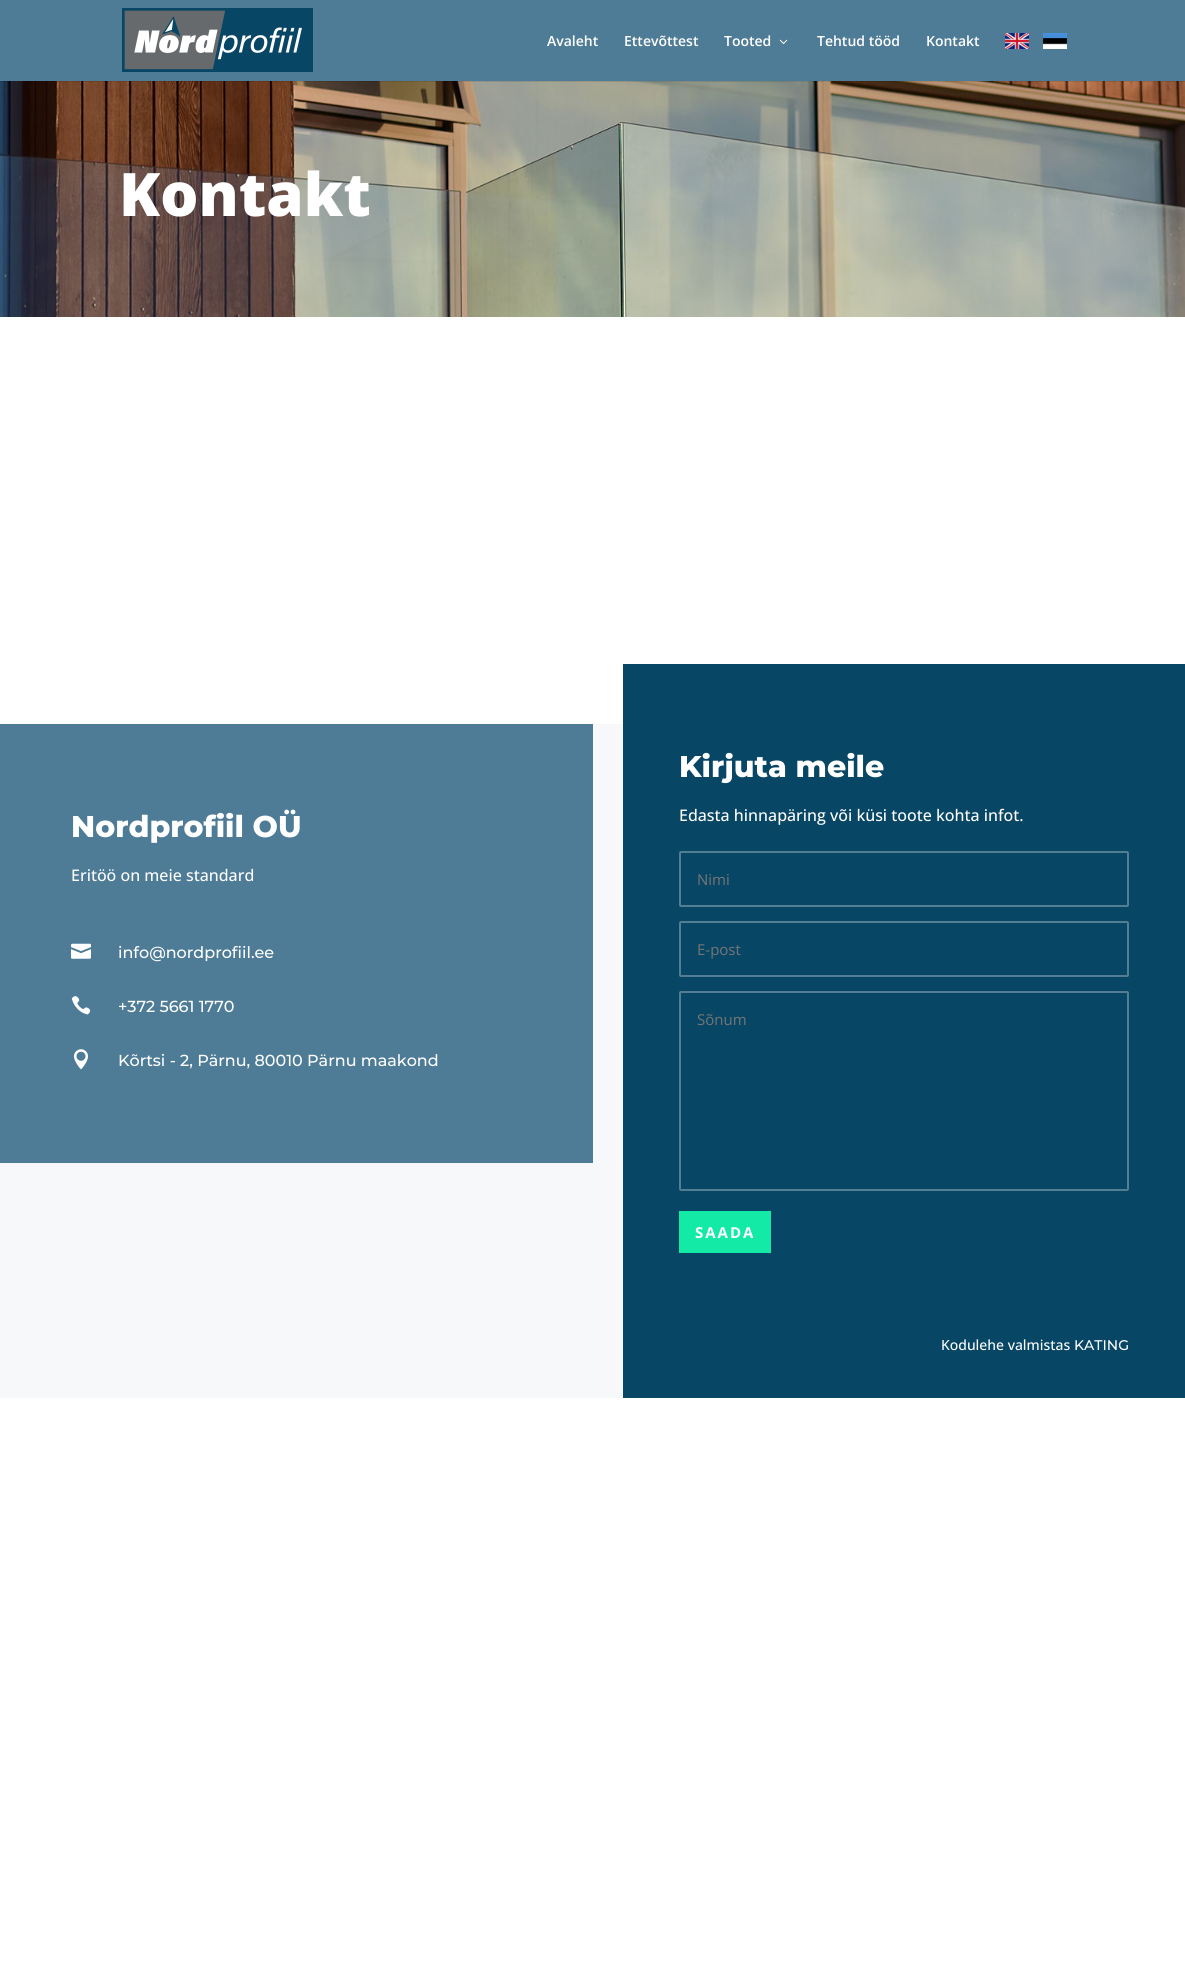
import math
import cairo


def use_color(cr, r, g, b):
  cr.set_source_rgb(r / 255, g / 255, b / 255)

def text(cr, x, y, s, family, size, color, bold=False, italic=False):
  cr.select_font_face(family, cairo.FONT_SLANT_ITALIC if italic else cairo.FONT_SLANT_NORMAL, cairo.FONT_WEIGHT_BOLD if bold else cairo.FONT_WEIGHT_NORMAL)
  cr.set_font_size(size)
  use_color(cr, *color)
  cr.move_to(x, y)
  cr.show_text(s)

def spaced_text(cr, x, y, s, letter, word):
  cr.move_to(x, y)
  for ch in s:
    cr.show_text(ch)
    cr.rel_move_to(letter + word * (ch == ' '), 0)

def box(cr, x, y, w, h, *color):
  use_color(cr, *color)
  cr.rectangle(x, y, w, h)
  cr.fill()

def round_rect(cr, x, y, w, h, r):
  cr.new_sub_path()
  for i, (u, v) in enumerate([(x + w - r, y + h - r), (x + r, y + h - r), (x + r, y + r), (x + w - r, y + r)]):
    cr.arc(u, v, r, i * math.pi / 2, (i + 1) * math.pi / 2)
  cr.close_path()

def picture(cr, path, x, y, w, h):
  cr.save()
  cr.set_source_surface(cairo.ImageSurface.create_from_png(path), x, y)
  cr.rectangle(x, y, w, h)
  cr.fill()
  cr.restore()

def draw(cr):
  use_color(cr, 255, 255, 255)
  cr.paint()
  picture(cr, "img_05.png", 0, 81, 1185, 236)
  cr.set_source_rgba(0, 0, 0, 0.1)
  cr.rectangle(0, 81, 1185, 1)
  cr.fill()
  box(cr, 0, 0, 1185, 81, 78, 124, 151)
  picture(cr, "img_01.png", 122, 8, 191, 64)
  picture(cr, "img_02.png", 779, 39, 9, 5)
  picture(cr, "img_03.png", 1005, 33, 24, 16)
  picture(cr, "img_04.png", 1043, 33, 24, 16)
  box(cr, 0, 724, 623, 674, 246, 248, 250)
  box(cr, 0, 724, 593, 439, 78, 124, 151)
  picture(cr, "img_06.png", 71, 943, 20, 16)
  picture(cr, "img_07.png", 71, 996, 20, 19)
  picture(cr, "img_08.png", 74, 1049, 14, 21)
  box(cr, 623, 664, 562, 734, 8, 70, 102)
  round_rect(cr, 680, 852, 448, 54, 1)
  use_color(cr, 82, 126, 148)
  cr.stroke()
  round_rect(cr, 680, 922, 448, 54, 1)
  cr.stroke()
  round_rect(cr, 680, 992, 448, 198, 1)
  cr.stroke()
  box(cr, 679, 1211, 92, 42, 18, 234, 166)
  text(cr, 547, 46, "Avaleht", "Open Sans SemiBold", 14, (255, 255, 255))
  text(cr, 624, 46, "Ettevõttest", "Open Sans SemiBold", 14, (255, 255, 255))
  text(cr, 724, 46, "Tooted", "Open Sans SemiBold", 14, (255, 255, 255))
  text(cr, 817, 46, "Tehtud tööd", "Open Sans SemiBold", 14, (255, 255, 255))
  text(cr, 926, 46, "Kontakt", "Open Sans SemiBold", 14, (255, 255, 255))
  text(cr, 119, 216, "Kontakt", "Open Sans ExtraBold", 60, (255, 255, 255))
  text(cr, 71, 837, "Nordprofiil OÜ", "Montserrat ExtraBold", 30, (255, 255, 255))
  text(cr, 71, 881, "Eritöö on meie standard", "Open Sans Medium", 16, (255, 255, 255))
  text(cr, 118, 958, "info@nordprofiil.ee", "Montserrat Medium", 16, (255, 255, 255))
  text(cr, 118, 1012, "+372 5661 1770", "Montserrat Medium", 16, (255, 255, 255))
  text(cr, 118, 1066, "Kõrtsi - 2, Pärnu, 80010 Pärnu maakond", "Montserrat Medium", 16, (255, 255, 255))
  text(cr, 679, 777, "Kirjuta meile", "Montserrat ExtraBold", 30, (255, 255, 255))
  text(cr, 679, 821, "Edasta hinnapäring või küsi toote kohta infot.", "Open Sans Medium", 16, (255, 255, 255))
  text(cr, 697, 885, "Nimi", "Open Sans", 15, (117, 117, 117))
  text(cr, 697, 955, "E-post", "Open Sans", 15, (117, 117, 117))
  text(cr, 697, 1025, "Sõnum", "Open Sans", 15, (117, 117, 117))
  cr.select_font_face("Open Sans", cairo.FONT_SLANT_NORMAL, cairo.FONT_WEIGHT_BOLD)
  use_color(cr, 255, 255, 255)
  spaced_text(cr, 695, 1238, "SAADA", 2, 0)
  text(cr, 941, 1350, "Kodulehe valmistas", "Open Sans Medium", 14, (255, 255, 255))
  text(cr, 1074, 1350, "KATING", "Montserrat Medium", 14, (255, 255, 255))


surface = cairo.ImageSurface(cairo.FORMAT_RGB24, 1185, 1966)
cr = cairo.Context(surface)
options = cairo.FontOptions()
options.set_hint_metrics(cairo.HINT_METRICS_OFF)
options.set_hint_style(cairo.HINT_STYLE_NONE)
cr.set_font_options(options)
cr.set_miter_limit(4)
draw(cr)
surface.write_to_png("out.png")
